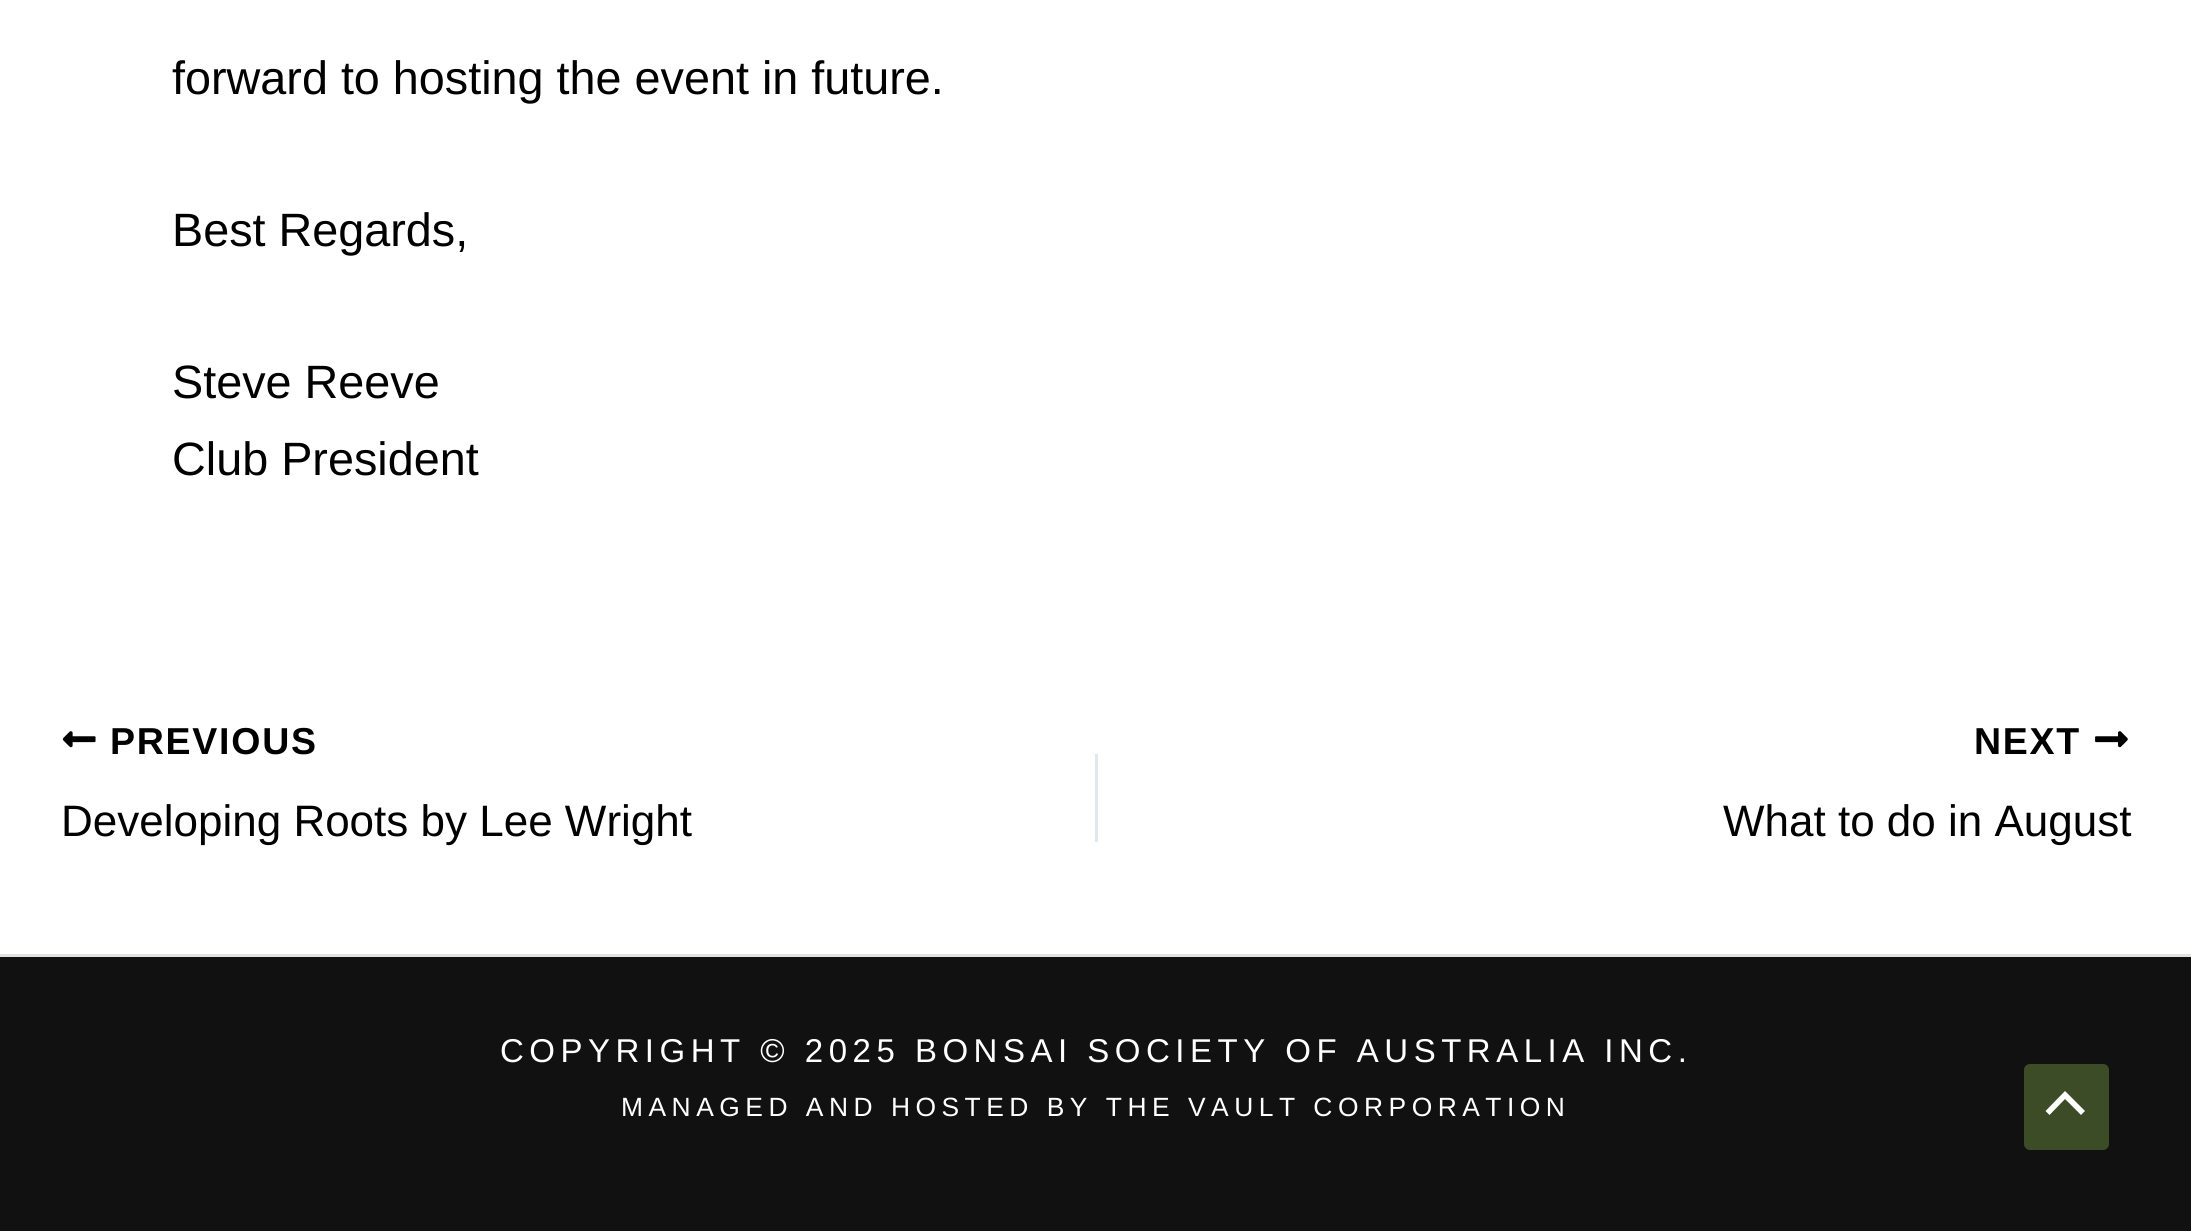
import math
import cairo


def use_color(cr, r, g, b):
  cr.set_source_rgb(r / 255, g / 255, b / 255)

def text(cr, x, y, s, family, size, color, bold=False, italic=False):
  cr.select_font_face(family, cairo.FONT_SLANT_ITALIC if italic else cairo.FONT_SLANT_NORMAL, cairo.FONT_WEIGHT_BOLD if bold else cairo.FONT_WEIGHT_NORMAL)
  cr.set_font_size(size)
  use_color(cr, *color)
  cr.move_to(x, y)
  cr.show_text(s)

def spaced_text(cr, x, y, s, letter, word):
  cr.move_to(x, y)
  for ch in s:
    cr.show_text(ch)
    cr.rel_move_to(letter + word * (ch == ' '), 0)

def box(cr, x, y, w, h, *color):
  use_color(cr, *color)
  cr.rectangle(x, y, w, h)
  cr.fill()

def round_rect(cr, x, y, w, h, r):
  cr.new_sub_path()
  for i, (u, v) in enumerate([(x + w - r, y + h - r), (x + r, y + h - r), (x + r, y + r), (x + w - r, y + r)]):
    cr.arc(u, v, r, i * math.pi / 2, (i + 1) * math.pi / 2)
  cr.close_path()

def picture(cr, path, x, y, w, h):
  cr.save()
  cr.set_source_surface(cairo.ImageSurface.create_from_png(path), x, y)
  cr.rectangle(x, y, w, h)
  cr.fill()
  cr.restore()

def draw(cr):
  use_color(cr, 255, 255, 255)
  cr.paint()
  picture(cr, "img_01.png", 62, 731, 34, 17)
  box(cr, 1095, 754, 3, 88, 225, 232, 237)
  picture(cr, "img_02.png", 2095, 731, 33, 17)
  box(cr, 0, 957, 2191, 274, 17, 17, 17)
  box(cr, 0, 954, 2191, 3, 225, 227, 223)
  use_color(cr, 60, 76, 39)
  round_rect(cr, 2024, 1064, 85, 86, 6)
  cr.fill()
  use_color(cr, 255, 255, 255)
  cr.new_path()
  cr.move_to(2085, 1111)
  cr.line_to(2065, 1091)
  cr.line_to(2045.5, 1111)
  cr.line_to(2049.5, 1115)
  cr.line_to(2065, 1099)
  cr.line_to(2081, 1115)
  cr.close_path()
  cr.fill()
  text(cr, 172, 94, "forward to hosting the event in future.", "Liberation Sans", 46.75, (0, 0, 0))
  text(cr, 172, 246, "Best Regards,", "Liberation Sans", 46.75, (0, 0, 0))
  text(cr, 172, 398, "Steve Reeve", "Liberation Sans", 46.75, (0, 0, 0))
  text(cr, 172, 475, "Club President", "Liberation Sans", 46.75, (0, 0, 0))
  cr.select_font_face("Liberation Sans", cairo.FONT_SLANT_NORMAL, cairo.FONT_WEIGHT_BOLD)
  cr.set_font_size(37.5)
  spaced_text(cr, 110, 754, "PREVIOUS", 1.75, 0)
  text(cr, 61, 836, "Developing Roots by Lee Wright", "Liberation Sans", 44, (0, 0, 0))
  cr.select_font_face("Liberation Sans", cairo.FONT_SLANT_NORMAL, cairo.FONT_WEIGHT_BOLD)
  cr.set_font_size(37.5)
  spaced_text(cr, 1974, 754, "NEXT", 1.75, 0)
  text(cr, 1723, 836, "What to do in August", "Liberation Sans", 44, (0, 0, 0))
  cr.set_font_size(33)
  use_color(cr, 255, 255, 255)
  spaced_text(cr, 500, 1062, "COPYRIGHT © 2025 BONSAI SOCIETY OF AUSTRALIA INC.", 5.5, 0)
  cr.set_font_size(26.4)
  spaced_text(cr, 621, 1116, "MANAGED AND HOSTED BY THE VAULT CORPORATION", 5.5, 0)


surface = cairo.ImageSurface(cairo.FORMAT_RGB24, 2191, 1231)
cr = cairo.Context(surface)
options = cairo.FontOptions()
options.set_hint_metrics(cairo.HINT_METRICS_OFF)
options.set_hint_style(cairo.HINT_STYLE_NONE)
cr.set_font_options(options)
cr.set_miter_limit(4)
draw(cr)
surface.write_to_png("out.png")
